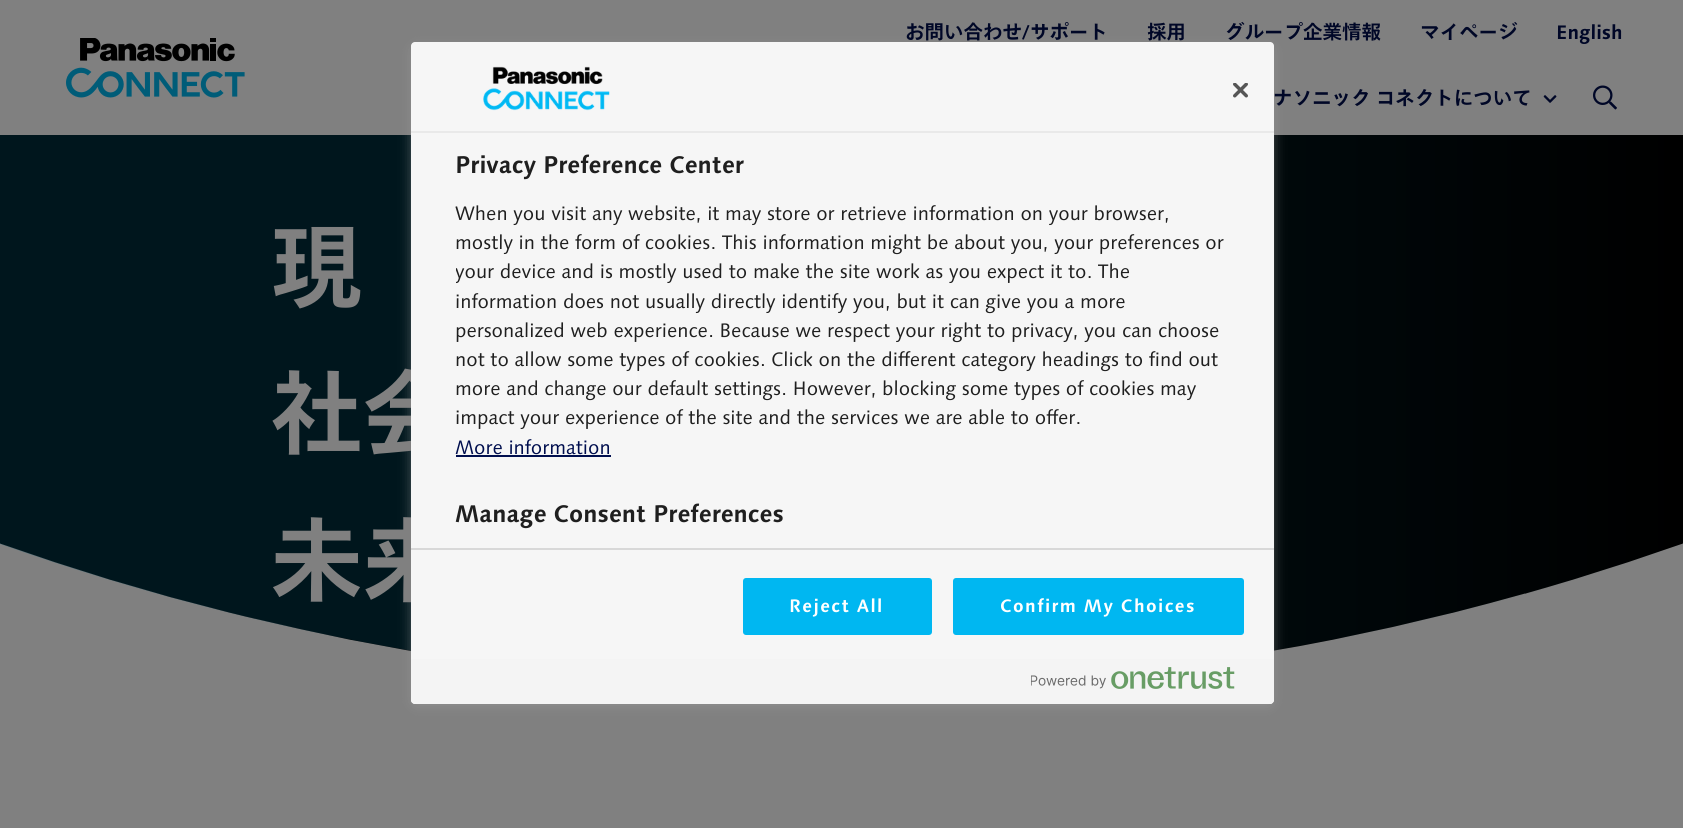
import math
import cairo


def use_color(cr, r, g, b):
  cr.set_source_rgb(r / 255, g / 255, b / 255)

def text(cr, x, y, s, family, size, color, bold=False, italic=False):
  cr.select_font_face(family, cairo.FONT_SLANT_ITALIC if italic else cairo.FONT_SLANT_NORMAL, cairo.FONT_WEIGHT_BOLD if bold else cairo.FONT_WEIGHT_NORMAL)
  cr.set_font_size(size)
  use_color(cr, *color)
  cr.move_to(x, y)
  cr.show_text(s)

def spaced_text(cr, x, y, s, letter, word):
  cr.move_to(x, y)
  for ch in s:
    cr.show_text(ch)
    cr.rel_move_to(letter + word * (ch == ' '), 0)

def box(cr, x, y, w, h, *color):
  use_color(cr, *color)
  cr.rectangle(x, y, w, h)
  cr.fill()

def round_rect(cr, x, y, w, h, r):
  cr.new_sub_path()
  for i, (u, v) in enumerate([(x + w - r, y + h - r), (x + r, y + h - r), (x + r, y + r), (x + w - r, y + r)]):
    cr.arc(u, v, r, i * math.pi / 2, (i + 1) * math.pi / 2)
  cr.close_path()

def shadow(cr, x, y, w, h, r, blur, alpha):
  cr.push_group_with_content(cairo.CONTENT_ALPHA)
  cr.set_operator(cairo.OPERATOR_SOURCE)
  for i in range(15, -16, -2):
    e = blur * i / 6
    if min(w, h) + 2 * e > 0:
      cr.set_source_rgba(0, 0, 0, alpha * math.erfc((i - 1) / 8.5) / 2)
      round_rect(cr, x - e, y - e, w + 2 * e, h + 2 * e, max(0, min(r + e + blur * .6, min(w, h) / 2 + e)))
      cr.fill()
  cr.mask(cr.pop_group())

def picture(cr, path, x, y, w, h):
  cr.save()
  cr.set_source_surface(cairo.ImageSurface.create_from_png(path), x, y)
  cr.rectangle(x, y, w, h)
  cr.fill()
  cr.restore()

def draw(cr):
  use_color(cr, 128, 128, 128)
  cr.paint()
  picture(cr, "img_01.png", 66, 38, 179, 60)
  picture(cr, "img_02.png", 1543, 95, 14, 8)
  picture(cr, "img_03.png", 1593, 85, 24, 25)
  picture(cr, "img_04.png", 0, 135, 1683, 516)
  gradient = cairo.LinearGradient(1683, 495, 0, 495)
  gradient.add_color_stop_rgba(0, 0, 0.361, 0.475, 0)
  gradient.add_color_stop_rgba(0.66, 0, 0.361, 0.475, 0.24)
  gradient.add_color_stop_rgba(1, 0, 0.361, 0.475, 0.24)
  cr.set_source(gradient)
  cr.new_path()
  cr.move_to(0, 135)
  cr.line_to(1683, 135)
  cr.line_to(1683, 544)
  cr.curve_to(1142, 735, 541, 735, 0, 544)
  cr.close_path()
  cr.fill()
  use_color(cr, 153, 153, 153)
  shadow(cr, 416, 50, 853, 652, 0, 7.5, 1)
  text(cr, 905, 39, "お問い合わせ", "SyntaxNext", 19.5, (0, 7, 39), bold=True)
  text(cr, 1022, 39, "/", "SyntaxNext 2", 19.5, (0, 7, 39), bold=True)
  text(cr, 1030, 39, "サポート", "SyntaxNext", 19.5, (0, 7, 39), bold=True)
  text(cr, 1147, 39, "採用", "SyntaxNext", 19.5, (0, 7, 39), bold=True)
  text(cr, 1225, 39, "グループ企業情報", "SyntaxNext", 19.5, (0, 7, 39), bold=True)
  text(cr, 1420, 39, "マイページ", "SyntaxNext", 19.5, (0, 7, 39), bold=True)
  text(cr, 1556, 39, "English", "SyntaxNext 2", 19.5, (0, 7, 39), bold=True)
  text(cr, 1273, 105, "ナソニック コネクトについて", "SyntaxNext", 19.5, (0, 7, 39), bold=True)
  text(cr, 270, 301, "現", "SyntaxNext", 93, (128, 128, 128), bold=True)
  text(cr, 270, 448, "社会", "SyntaxNext", 93, (128, 128, 128), bold=True)
  text(cr, 270, 595, "未来", "SyntaxNext", 93, (128, 128, 128), bold=True)
  use_color(cr, 246, 246, 246)
  round_rect(cr, 411, 42, 863, 662, 4)
  cr.fill()
  box(cr, 411, 131, 863, 2, 233, 233, 233)
  picture(cr, "img_05.png", 483, 66, 127, 45)
  picture(cr, "img_06.png", 1233, 83, 15, 15)
  text(cr, 455, 173, "Privacy Preference Center", "SyntaxNext 2", 24, (31, 31, 31), bold=True)
  text(cr, 455, 220, "When you visit any website, it may store or retrieve information on your browser,", "SyntaxNext", 19.5, (31, 31, 31))
  text(cr, 455, 249, "mostly in the form of cookies. This information might be about you, your preferences or", "SyntaxNext", 19.5, (31, 31, 31))
  cr.save()
  cr.rectangle(456, 134, 813, 405)
  cr.clip()
  text(cr, 455, 278, "your device and is mostly used to make the site work as you expect it to. The", "SyntaxNext", 19.5, (31, 31, 31))
  cr.restore()
  text(cr, 455, 308, "information does not usually directly identify you, but it can give you a more", "SyntaxNext", 19.5, (31, 31, 31))
  text(cr, 455, 337, "personalized web experience. Because we respect your right to privacy, you can choose", "SyntaxNext", 19.5, (31, 31, 31))
  text(cr, 455, 366, "not to allow some types of cookies. Click on the different category headings to find out", "SyntaxNext", 19.5, (31, 31, 31))
  text(cr, 455, 395, "more and change our default settings. However, blocking some types of cookies may", "SyntaxNext", 19.5, (31, 31, 31))
  text(cr, 455, 424, "impact your experience of the site and the services we are able to offer.", "SyntaxNext", 19.5, (31, 31, 31))
  text(cr, 455, 454, "More information", "SyntaxNext", 19.5, (0, 14, 78))
  box(cr, 456, 455, 155, 2, 0, 14, 78)
  text(cr, 455, 522, "Manage Consent Preferences", "SyntaxNext 2", 24, (31, 31, 31), bold=True)
  box(cr, 411, 548, 863, 2, 216, 216, 216)
  use_color(cr, 0, 183, 241)
  round_rect(cr, 744, 579, 187, 55, 2)
  cr.fill_preserve()
  cr.stroke()
  cr.set_font_size(18)
  use_color(cr, 255, 255, 255)
  spaced_text(cr, 789, 612, "Reject All", 1.4, 0)
  use_color(cr, 0, 183, 241)
  round_rect(cr, 954, 579, 289, 55, 2)
  cr.fill_preserve()
  cr.stroke()
  use_color(cr, 255, 255, 255)
  spaced_text(cr, 1000, 612, "Confirm My Choices", 1.4, 0)
  use_color(cr, 244, 244, 244)
  cr.new_path()
  cr.move_to(411, 659)
  cr.line_to(1274, 659)
  cr.line_to(1274, 700)
  cr.curve_to(1274, 702, 1272, 704, 1270, 704)
  cr.line_to(415, 704)
  cr.curve_to(413, 704, 411, 702, 411, 700)
  cr.close_path()
  cr.fill()
  picture(cr, "img_07.png", 1031, 667, 204, 22)


surface = cairo.ImageSurface(cairo.FORMAT_RGB24, 1683, 828)
cr = cairo.Context(surface)
options = cairo.FontOptions()
options.set_hint_metrics(cairo.HINT_METRICS_OFF)
options.set_hint_style(cairo.HINT_STYLE_NONE)
cr.set_font_options(options)
cr.set_miter_limit(4)
draw(cr)
surface.write_to_png("out.png")
